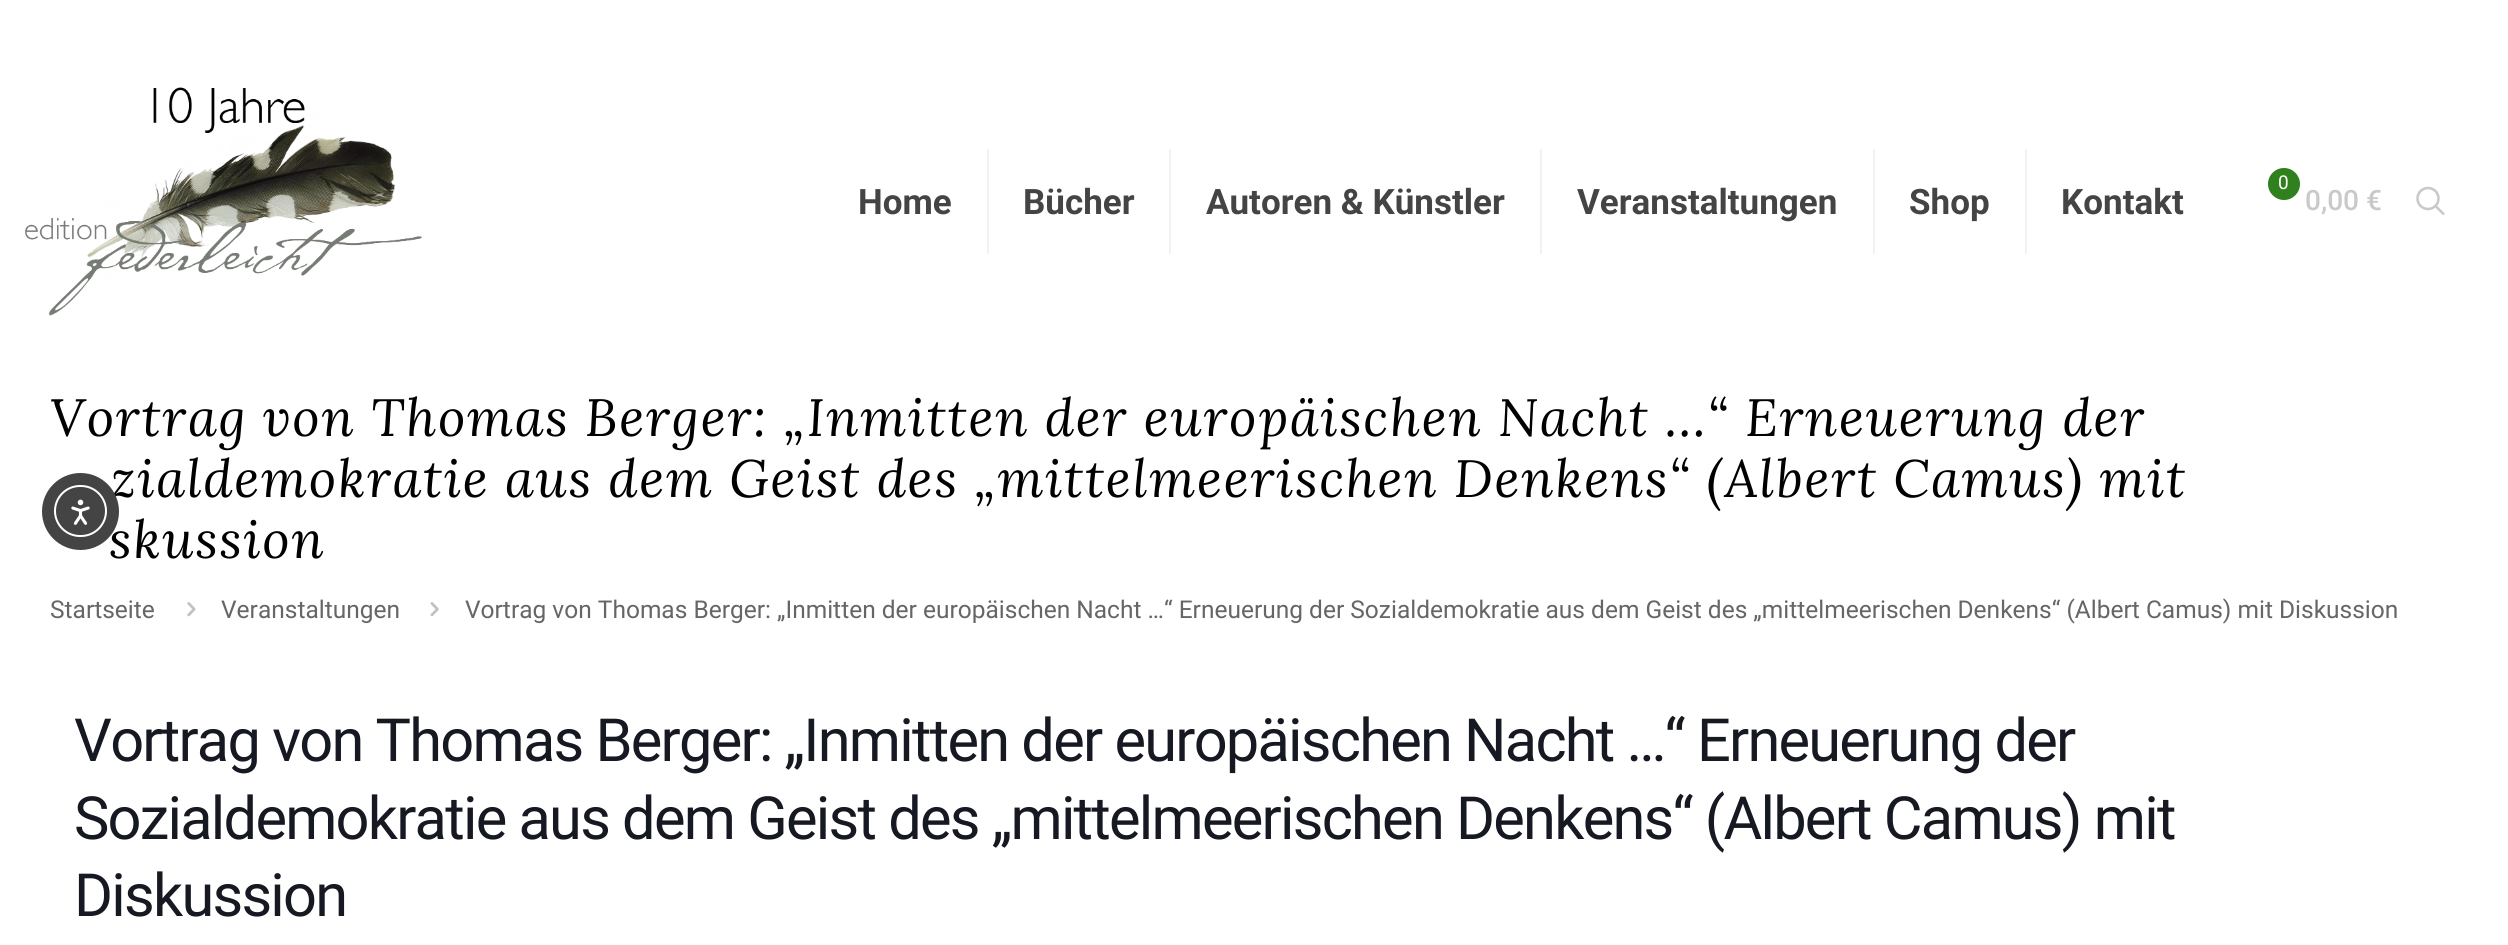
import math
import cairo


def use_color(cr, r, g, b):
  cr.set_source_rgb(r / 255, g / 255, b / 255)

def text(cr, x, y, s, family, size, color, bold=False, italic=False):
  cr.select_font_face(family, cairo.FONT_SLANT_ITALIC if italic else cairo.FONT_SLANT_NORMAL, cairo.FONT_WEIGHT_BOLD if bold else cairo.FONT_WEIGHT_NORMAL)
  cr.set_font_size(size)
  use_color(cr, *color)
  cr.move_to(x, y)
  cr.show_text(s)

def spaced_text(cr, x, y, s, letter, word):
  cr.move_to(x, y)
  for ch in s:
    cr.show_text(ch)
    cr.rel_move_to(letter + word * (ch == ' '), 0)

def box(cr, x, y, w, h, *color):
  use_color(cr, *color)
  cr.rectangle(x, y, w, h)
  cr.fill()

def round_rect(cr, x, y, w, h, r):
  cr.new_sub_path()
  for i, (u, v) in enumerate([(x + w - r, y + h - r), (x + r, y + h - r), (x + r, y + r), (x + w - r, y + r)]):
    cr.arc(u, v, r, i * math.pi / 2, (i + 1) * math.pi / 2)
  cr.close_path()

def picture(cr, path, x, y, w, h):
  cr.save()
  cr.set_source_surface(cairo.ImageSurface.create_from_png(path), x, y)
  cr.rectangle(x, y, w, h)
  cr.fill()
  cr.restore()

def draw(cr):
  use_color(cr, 255, 255, 255)
  cr.paint()
  picture(cr, "img_01.png", 25, 87, 397, 229)
  box(cr, 987, 149, 2, 105, 242, 242, 242)
  box(cr, 1169, 149, 2, 105, 242, 242, 242)
  box(cr, 1540, 149, 2, 105, 242, 242, 242)
  box(cr, 1873, 149, 2, 105, 242, 242, 242)
  box(cr, 2025, 149, 2, 105, 242, 242, 242)
  use_color(cr, 48, 128, 30)
  cr.arc(2284, 184, 16, 0, 2 * math.pi)
  cr.fill()
  cr.arc(2428, 198.5, 10.5, 0, 2 * math.pi)
  use_color(cr, 201, 201, 201)
  cr.set_line_width(2.6)
  cr.stroke()
  cr.new_path()
  cr.move_to(2435.5, 206)
  cr.line_to(2444, 214.5)
  cr.stroke()
  picture(cr, "img_02.png", 187, 602, 9, 15)
  picture(cr, "img_03.png", 430, 602, 9, 15)
  text(cr, 858, 214, "Home", "Roboto", 35, (68, 68, 68), bold=True)
  text(cr, 1023, 214, "Bücher", "Roboto", 35, (68, 68, 68), bold=True)
  text(cr, 1206, 214, "Autoren & Künstler", "Roboto", 35, (68, 68, 68), bold=True)
  text(cr, 1577, 214, "Veranstaltungen", "Roboto", 35, (68, 68, 68), bold=True)
  text(cr, 1909, 214, "Shop", "Roboto", 35, (68, 68, 68), bold=True)
  text(cr, 2061, 214, "Kontakt", "Roboto", 35, (68, 68, 68), bold=True)
  text(cr, 2278, 189, "0", "Roboto", 19, (255, 255, 255))
  text(cr, 2305, 210, "0,00 €", "Roboto Medium", 28, (201, 201, 201))
  cr.select_font_face("Lora", cairo.FONT_SLANT_ITALIC)
  cr.set_font_size(52.5)
  use_color(cr, 0, 0, 0)
  spaced_text(cr, 50, 436, "Vortrag von Thomas Berger: „Inmitten der europäischen Nacht …“ Erneuerung der", 1.75, 0)
  spaced_text(cr, 111, 497, "zialdemokratie aus dem Geist des „mittelmeerischen Denkens“ (Albert Camus) mit", 1.75, 0)
  spaced_text(cr, 109, 558, "skussion", 1.75, 0)
  text(cr, 50, 618, "Startseite", "Roboto", 24.5, (102, 102, 102))
  text(cr, 221, 618, "Veranstaltungen", "Roboto", 24.5, (102, 102, 102))
  text(cr, 465, 618, "Vortrag von Thomas Berger: „Inmitten der europäischen Nacht …“ Erneuerung der Sozialdemokratie aus dem Geist des „mittelmeerischen Denkens“ (Albert Camus) mit Diskussion", "Roboto", 24.5, (102, 102, 102))
  cr.set_font_size(59.5)
  use_color(cr, 22, 25, 34)
  spaced_text(cr, 74, 761, "Vortrag von Thomas Berger: „Inmitten der europäischen Nacht …“ Erneuerung der", -1.75, 0)
  spaced_text(cr, 74, 839, "Sozialdemokratie aus dem Geist des „mittelmeerischen Denkens“ (Albert Camus) mit", -1.75, 0)
  spaced_text(cr, 74, 916, "Diskussion", -1.75, 0)
  use_color(cr, 68, 68, 68)
  cr.new_path()
  cr.arc(80.5, 511.5, 38.5, 0, 2 * math.pi)
  cr.fill()
  round_rect(cr, 55, 486, 51, 50, 25)
  use_color(cr, 255, 255, 255)
  cr.set_line_width(2)
  cr.stroke()
  picture(cr, "img_04.png", 71, 499, 19, 26)


surface = cairo.ImageSurface(cairo.FORMAT_RGB24, 2508, 945)
cr = cairo.Context(surface)
options = cairo.FontOptions()
options.set_hint_metrics(cairo.HINT_METRICS_OFF)
options.set_hint_style(cairo.HINT_STYLE_NONE)
cr.set_font_options(options)
cr.set_miter_limit(4)
draw(cr)
surface.write_to_png("out.png")
